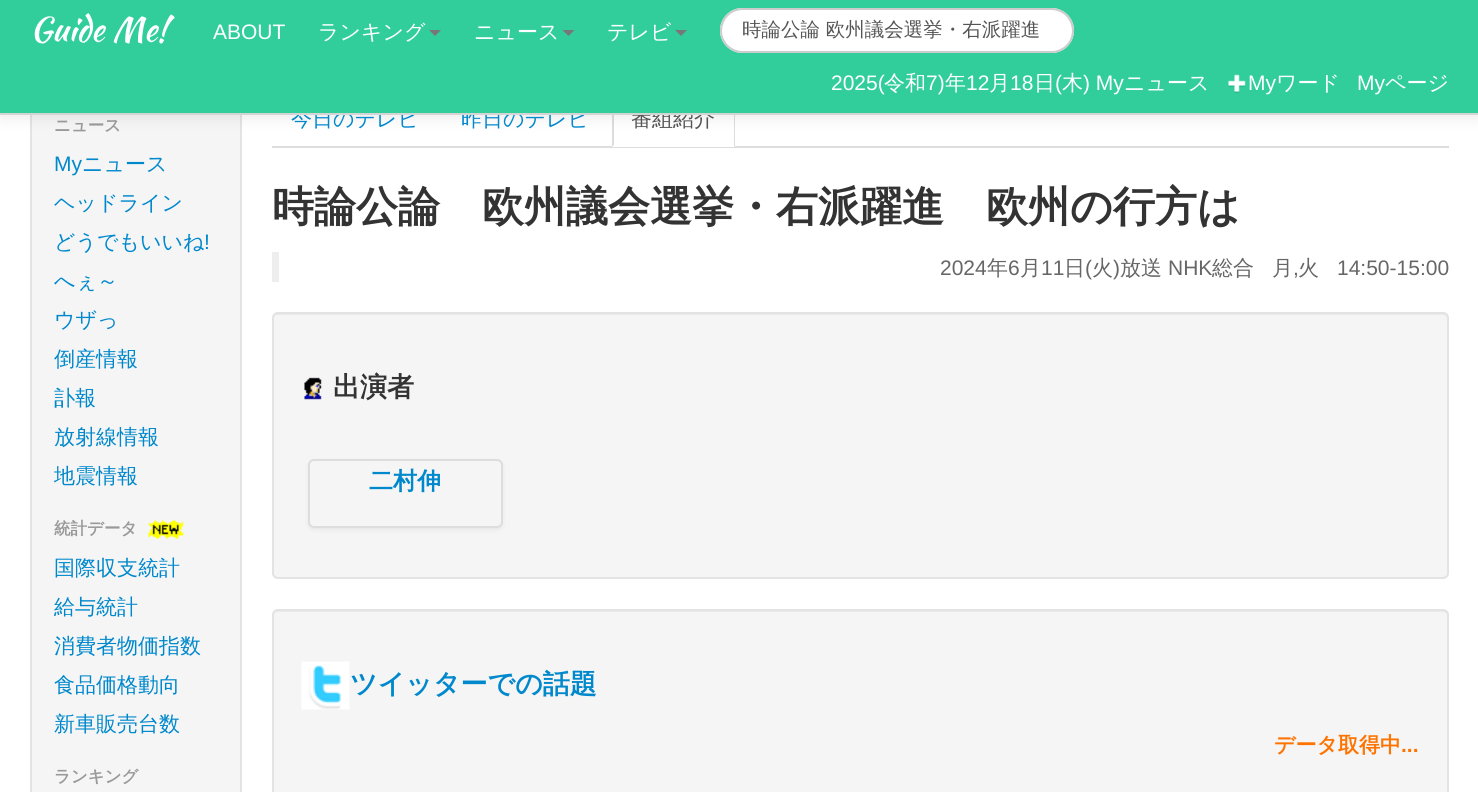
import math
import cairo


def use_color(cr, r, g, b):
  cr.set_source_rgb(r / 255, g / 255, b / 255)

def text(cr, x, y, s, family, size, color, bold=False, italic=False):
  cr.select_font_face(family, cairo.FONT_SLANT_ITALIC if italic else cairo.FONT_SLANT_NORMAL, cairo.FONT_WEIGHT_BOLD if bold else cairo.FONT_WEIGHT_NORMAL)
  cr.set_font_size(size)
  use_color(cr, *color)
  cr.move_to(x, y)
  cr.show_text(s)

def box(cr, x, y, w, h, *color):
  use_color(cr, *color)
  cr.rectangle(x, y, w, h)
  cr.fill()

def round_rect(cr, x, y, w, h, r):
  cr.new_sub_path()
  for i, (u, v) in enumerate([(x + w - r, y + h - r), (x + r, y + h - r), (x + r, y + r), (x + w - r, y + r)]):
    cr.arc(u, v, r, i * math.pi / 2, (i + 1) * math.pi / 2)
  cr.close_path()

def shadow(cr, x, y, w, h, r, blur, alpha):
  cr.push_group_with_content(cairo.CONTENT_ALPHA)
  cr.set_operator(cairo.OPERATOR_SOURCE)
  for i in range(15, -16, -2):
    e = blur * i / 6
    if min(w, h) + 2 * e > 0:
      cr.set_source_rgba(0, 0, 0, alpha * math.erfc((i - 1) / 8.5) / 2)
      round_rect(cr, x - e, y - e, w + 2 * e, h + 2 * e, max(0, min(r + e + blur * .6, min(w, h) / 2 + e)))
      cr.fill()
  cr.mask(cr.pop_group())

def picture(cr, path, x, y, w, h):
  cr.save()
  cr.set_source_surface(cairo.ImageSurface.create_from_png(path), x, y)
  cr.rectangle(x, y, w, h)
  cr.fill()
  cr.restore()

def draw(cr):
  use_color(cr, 255, 255, 255)
  cr.paint()
  box(cr, 32, 115, 208, 677, 245, 245, 245)
  cr.rectangle(31, 91, 210, 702)
  use_color(cr, 227, 227, 227)
  cr.stroke()
  box(cr, 272, 146, 1177, 2, 221, 221, 221)
  box(cr, 612, 146, 123, 1, 255, 255, 255)
  use_color(cr, 221, 221, 221)
  cr.new_path()
  cr.move_to(735, 147)
  cr.line_to(735, 96)
  cr.curve_to(735, 94, 734, 93, 733, 92)
  cr.line_to(732, 93)
  cr.line_to(734, 96)
  cr.line_to(734, 146)
  cr.close_path()
  cr.fill()
  cr.new_path()
  cr.move_to(612, 147)
  cr.line_to(614, 145)
  cr.line_to(614, 95)
  cr.line_to(615, 93)
  cr.line_to(614, 92)
  cr.curve_to(613, 93, 612, 94, 612, 96)
  cr.close_path()
  cr.fill()
  use_color(cr, 0, 0, 0)
  shadow(cr, 0, 2, 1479, 114, 0, 7.5, 0.1)
  picture(cr, "img_02.png", 148, 520, 36, 19)
  box(cr, 272, 252, 7, 30, 238, 238, 238)
  use_color(cr, 245, 245, 245)
  round_rect(cr, 272, 312, 1177, 267, 6)
  cr.fill()
  use_color(cr, 233, 233, 233)
  cr.new_path()
  cr.move_to(278, 315)
  cr.line_to(1443, 315)
  cr.curve_to(1445, 315, 1448, 317, 1448, 320)
  cr.curve_to(1448, 317, 1446, 314, 1443, 314)
  cr.line_to(278, 314)
  cr.curve_to(275, 314, 273, 317, 273, 320)
  cr.curve_to(273, 317, 275, 315, 278, 315)
  cr.close_path()
  cr.fill()
  round_rect(cr, 273, 313, 1175, 265, 5)
  use_color(cr, 227, 227, 227)
  cr.stroke()
  picture(cr, "img_03.png", 304, 377, 18, 23)
  cr.save()
  cr.set_fill_rule(cairo.FILL_RULE_EVEN_ODD)
  cr.new_path()
  cr.move_to(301, 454)
  cr.line_to(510, 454)
  cr.line_to(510, 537)
  cr.line_to(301, 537)
  cr.close_path()
  cr.move_to(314, 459)
  cr.line_to(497, 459)
  cr.curve_to(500.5, 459, 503, 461.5, 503, 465)
  cr.line_to(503, 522)
  cr.curve_to(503, 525.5, 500.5, 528, 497, 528)
  cr.line_to(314, 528)
  cr.curve_to(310.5, 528, 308, 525.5, 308, 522)
  cr.line_to(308, 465)
  cr.curve_to(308, 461.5, 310.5, 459, 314, 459)
  cr.close_path()
  cr.clip()
  use_color(cr, 0, 0, 0)
  shadow(cr, 308, 461, 195, 69, 6, 2, 0.06)
  cr.restore()
  round_rect(cr, 309, 460, 193, 67, 5)
  use_color(cr, 221, 221, 221)
  cr.stroke()
  use_color(cr, 245, 245, 245)
  round_rect(cr, 272, 609, 1177, 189, 6)
  cr.fill()
  use_color(cr, 233, 233, 233)
  cr.new_path()
  cr.move_to(278, 612)
  cr.line_to(1443, 612)
  cr.curve_to(1445, 612, 1448, 614, 1448, 616)
  cr.curve_to(1448, 613, 1446, 611, 1443, 611)
  cr.line_to(278, 611)
  cr.curve_to(275, 611, 273, 613, 273, 616)
  cr.curve_to(273, 614, 275, 612, 278, 612)
  cr.close_path()
  cr.fill()
  round_rect(cr, 273, 610, 1175, 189, 5)
  use_color(cr, 227, 227, 227)
  cr.stroke()
  picture(cr, "img_04.png", 301, 661, 49, 49)
  text(cr, 54, 131, "ニュース", "WenQuanYi Zen Hei", 16.5, (153, 153, 153), bold=True)
  text(cr, 54, 171, "My", "Liberation Sans", 21, (0, 136, 204))
  text(cr, 82, 171, "ニュース", "WenQuanYi Zen Hei Medium", 21, (0, 136, 204))
  text(cr, 54, 210, "ヘッドライン", "WenQuanYi Zen Hei Medium", 21, (0, 136, 204))
  text(cr, 54, 249, "どうでもいいね", "WenQuanYi Zen Hei Medium", 21, (0, 136, 204))
  text(cr, 204, 249, "!", "Liberation Sans", 21, (0, 136, 204))
  text(cr, 54, 288, "へぇ～", "WenQuanYi Zen Hei Medium", 21, (0, 136, 204))
  text(cr, 54, 327, "ウザっ", "WenQuanYi Zen Hei Medium", 21, (0, 136, 204))
  text(cr, 54, 366, "倒産情報", "WenQuanYi Zen Hei Medium", 21, (0, 136, 204))
  text(cr, 54, 405, "訃報", "WenQuanYi Zen Hei Medium", 21, (0, 136, 204))
  text(cr, 54, 444, "放射線情報", "WenQuanYi Zen Hei Medium", 21, (0, 136, 204))
  text(cr, 54, 483, "地震情報", "WenQuanYi Zen Hei Medium", 21, (0, 136, 204))
  text(cr, 54, 534, "統計データ", "WenQuanYi Zen Hei", 16.5, (153, 153, 153), bold=True)
  text(cr, 54, 575, "国際収支統計", "WenQuanYi Zen Hei Medium", 21, (0, 136, 204))
  text(cr, 54, 614, "給与統計", "WenQuanYi Zen Hei Medium", 21, (0, 136, 204))
  text(cr, 54, 653, "消費者物価指数", "WenQuanYi Zen Hei Medium", 21, (0, 136, 204))
  text(cr, 54, 692, "食品価格動向", "WenQuanYi Zen Hei Medium", 21, (0, 136, 204))
  text(cr, 54, 731, "新車販売台数", "WenQuanYi Zen Hei Medium", 21, (0, 136, 204))
  text(cr, 54, 782, "ランキング", "WenQuanYi Zen Hei", 16.5, (153, 153, 153), bold=True)
  text(cr, 291, 126, "今日のテレビ", "WenQuanYi Zen Hei Medium", 21, (0, 136, 204))
  text(cr, 461, 126, "昨日のテレビ", "WenQuanYi Zen Hei Medium", 21, (0, 136, 204))
  text(cr, 631, 126, "番組紹介", "WenQuanYi Zen Hei Medium", 21, (85, 85, 85))
  box(cr, 0, 0, 1478, 113, 49, 206, 156)
  use_color(cr, 255, 255, 255)
  round_rect(cr, 720, 8, 354, 45, 22.5)
  cr.fill()
  use_color(cr, 236, 236, 236)
  cr.new_path()
  cr.move_to(742, 10)
  cr.line_to(1052, 10)
  cr.curve_to(1063, 10, 1072, 20, 1072, 32)
  cr.curve_to(1072, 35, 1071, 39, 1070, 41)
  cr.curve_to(1072, 38, 1073, 34, 1073, 30)
  cr.curve_to(1073, 18, 1064, 9, 1052, 9)
  cr.line_to(743, 9)
  cr.curve_to(731, 9, 722, 18, 722, 30)
  cr.line_to(722, 31)
  cr.curve_to(723, 19, 731, 10, 742, 10)
  cr.close_path()
  cr.fill()
  round_rect(cr, 721, 9, 352, 43, 21.5)
  use_color(cr, 204, 204, 204)
  cr.stroke()
  text(cr, 742, 36, "時論公論 欧州議会選挙・右派躍進", "WenQuanYi Zen Hei Medium", 19.5, (85, 85, 85))
  use_color(cr, 119, 119, 119)
  cr.new_path()
  cr.move_to(675, 30)
  cr.line_to(687, 30)
  cr.line_to(681, 36)
  cr.close_path()
  cr.fill()
  text(cr, 607, 39, "テレビ", "WenQuanYi Zen Hei Medium", 21, (255, 255, 255))
  use_color(cr, 119, 119, 119)
  cr.new_path()
  cr.move_to(562.5, 30)
  cr.line_to(574.5, 30)
  cr.line_to(568.5, 36)
  cr.close_path()
  cr.fill()
  text(cr, 474, 39, "ニュース", "WenQuanYi Zen Hei Medium", 21, (255, 255, 255))
  use_color(cr, 119, 119, 119)
  cr.new_path()
  cr.move_to(429, 30)
  cr.line_to(441, 30)
  cr.line_to(435, 36)
  cr.close_path()
  cr.fill()
  text(cr, 318, 39, "ランキング", "WenQuanYi Zen Hei Medium", 21, (255, 255, 255))
  text(cr, 213, 39, "ABOUT", "Liberation Sans", 21, (255, 255, 255))
  text(cr, 1385, 90, "ページ", "WenQuanYi Zen Hei Medium", 21, (255, 255, 255))
  text(cr, 1357, 90, "My", "Liberation Sans", 21, (255, 255, 255))
  text(cr, 1276, 90, "ワード", "WenQuanYi Zen Hei Medium", 21, (255, 255, 255))
  text(cr, 1248, 90, "My", "Liberation Sans", 21, (255, 255, 255))
  picture(cr, "img_01.png", 1228, 74, 18, 19)
  text(cr, 1124, 90, "ニュース", "WenQuanYi Zen Hei Medium", 21, (255, 255, 255))
  text(cr, 1083, 90, ") My", "Liberation Sans", 21, (255, 255, 255))
  text(cr, 1055, 90, "(", "Liberation Sans", 21, (255, 255, 255))
  text(cr, 1062, 90, "木", "WenQuanYi Zen Hei Medium", 21, (255, 255, 255))
  text(cr, 1034, 90, "日", "WenQuanYi Zen Hei Medium", 21, (255, 255, 255))
  text(cr, 1010, 90, "18", "Liberation Sans", 21, (255, 255, 255))
  text(cr, 989, 90, "月", "WenQuanYi Zen Hei Medium", 21, (255, 255, 255))
  text(cr, 966, 90, "12", "Liberation Sans", 21, (255, 255, 255))
  text(cr, 945, 90, "年", "WenQuanYi Zen Hei Medium", 21, (255, 255, 255))
  text(cr, 926, 90, "7)", "Liberation Sans", 21, (255, 255, 255))
  text(cr, 831, 90, "2025(", "Liberation Sans", 21, (255, 255, 255))
  text(cr, 884, 90, "令和", "WenQuanYi Zen Hei Medium", 21, (255, 255, 255))
  text(cr, 30, 41, "Guide Me!", "Kaushan Script", 33.5, (255, 255, 255))
  box(cr, 0, 113, 1478, 2, 212, 212, 212)
  text(cr, 272, 221, "時論公論　欧州議会選挙・右派躍進　欧州の行方は", "WenQuanYi Zen Hei", 42, (51, 51, 51), bold=True)
  text(cr, 940, 275, "2024", "Liberation Sans", 21, (102, 102, 102))
  text(cr, 987, 275, "年", "WenQuanYi Zen Hei Medium", 21, (102, 102, 102))
  text(cr, 1008, 275, "6", "Liberation Sans", 21, (102, 102, 102))
  text(cr, 1020, 275, "月", "WenQuanYi Zen Hei Medium", 21, (102, 102, 102))
  text(cr, 1041, 275, "11", "Liberation Sans", 21, (102, 102, 102))
  text(cr, 1064, 275, "日", "WenQuanYi Zen Hei Medium", 21, (102, 102, 102))
  text(cr, 1085, 275, "(", "Liberation Sans", 21, (102, 102, 102))
  text(cr, 1092, 275, "火", "WenQuanYi Zen Hei Medium", 21, (102, 102, 102))
  text(cr, 1113, 275, ")", "Liberation Sans", 21, (102, 102, 102))
  text(cr, 1120, 275, "放送", "WenQuanYi Zen Hei Medium", 21, (102, 102, 102))
  text(cr, 1168, 275, "NHK", "Liberation Sans", 21, (102, 102, 102))
  text(cr, 1212, 275, "総合", "WenQuanYi Zen Hei Medium", 21, (102, 102, 102))
  text(cr, 1272, 275, "月", "WenQuanYi Zen Hei Medium", 21, (102, 102, 102))
  text(cr, 1293, 275, ",", "Liberation Sans", 21, (102, 102, 102))
  text(cr, 1298, 275, "火", "WenQuanYi Zen Hei Medium", 21, (102, 102, 102))
  text(cr, 1337, 275, "14:50-15:00", "Liberation Sans", 21, (102, 102, 102))
  text(cr, 333, 396, "出演者", "WenQuanYi Zen Hei", 27, (51, 51, 51), bold=True)
  text(cr, 369, 489, "二村伸", "WenQuanYi Zen Hei", 24, (0, 136, 204), bold=True)
  text(cr, 350, 693, "ツイッターでの話題", "WenQuanYi Zen Hei", 27, (0, 136, 204), bold=True)
  text(cr, 1274, 752, "データ取得中", "WenQuanYi Zen Hei", 21, (255, 115, 0), bold=True)
  text(cr, 1401, 752, "...", "Liberation Sans", 21, (255, 115, 0), bold=True)


surface = cairo.ImageSurface(cairo.FORMAT_RGB24, 1478, 792)
cr = cairo.Context(surface)
options = cairo.FontOptions()
options.set_hint_metrics(cairo.HINT_METRICS_OFF)
options.set_hint_style(cairo.HINT_STYLE_NONE)
cr.set_font_options(options)
cr.set_miter_limit(4)
draw(cr)
surface.write_to_png("out.png")
